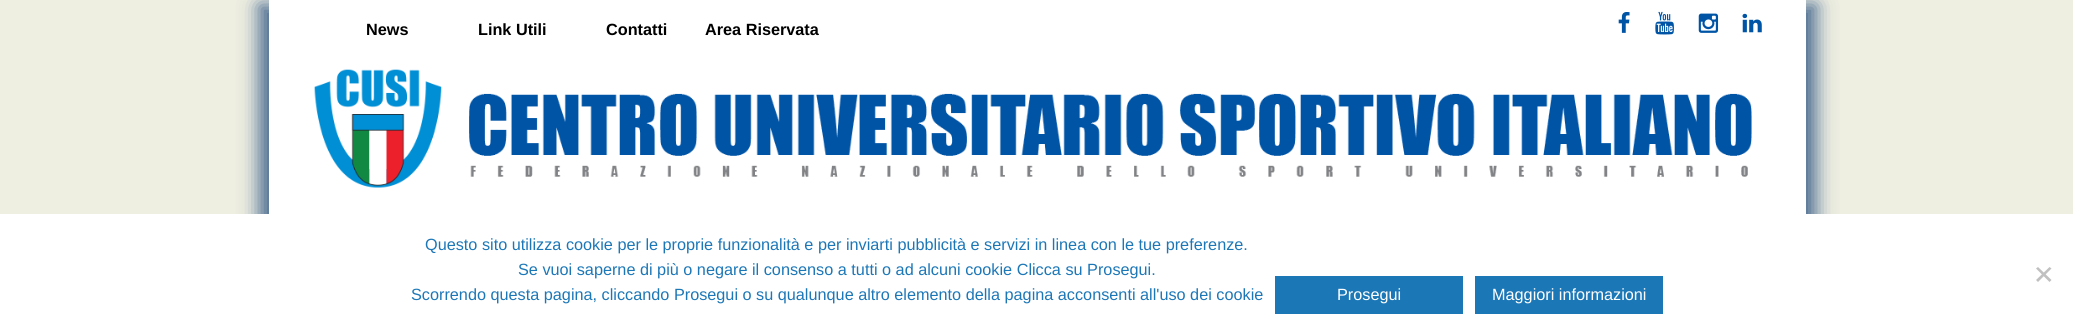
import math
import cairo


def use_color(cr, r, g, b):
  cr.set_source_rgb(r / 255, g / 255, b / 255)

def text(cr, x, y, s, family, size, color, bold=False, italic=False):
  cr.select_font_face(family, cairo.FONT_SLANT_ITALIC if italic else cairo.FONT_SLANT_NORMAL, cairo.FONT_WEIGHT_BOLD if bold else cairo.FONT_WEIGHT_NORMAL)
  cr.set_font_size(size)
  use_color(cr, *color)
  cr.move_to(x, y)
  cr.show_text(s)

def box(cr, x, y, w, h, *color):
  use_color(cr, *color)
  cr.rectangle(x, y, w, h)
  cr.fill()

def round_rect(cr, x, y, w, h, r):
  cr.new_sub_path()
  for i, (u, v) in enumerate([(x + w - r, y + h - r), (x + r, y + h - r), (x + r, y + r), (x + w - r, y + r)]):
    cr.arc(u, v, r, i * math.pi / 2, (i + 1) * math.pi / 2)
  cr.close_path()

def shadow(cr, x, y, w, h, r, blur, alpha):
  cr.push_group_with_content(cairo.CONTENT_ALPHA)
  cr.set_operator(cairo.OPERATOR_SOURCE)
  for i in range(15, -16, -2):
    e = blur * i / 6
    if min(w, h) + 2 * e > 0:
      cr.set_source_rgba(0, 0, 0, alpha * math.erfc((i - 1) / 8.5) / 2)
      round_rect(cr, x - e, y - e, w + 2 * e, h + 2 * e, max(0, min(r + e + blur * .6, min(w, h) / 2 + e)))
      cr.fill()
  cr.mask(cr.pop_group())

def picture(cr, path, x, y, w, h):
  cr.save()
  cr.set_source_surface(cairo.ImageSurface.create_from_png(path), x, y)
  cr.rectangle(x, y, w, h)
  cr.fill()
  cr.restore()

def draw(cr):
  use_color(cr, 238, 238, 225)
  cr.paint()
  use_color(cr, 31, 73, 125)
  shadow(cr, 259, 5, 1527, 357, 0, 9.5, 0.8)
  shadow(cr, 289, 5, 1527, 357, 0, 9.5, 0.8)
  box(cr, 269, 0, 1537, 214, 255, 255, 255)
  picture(cr, "img_01.png", 1618, 12, 12, 21)
  picture(cr, "img_02.png", 1655, 11, 19, 24)
  picture(cr, "img_03.png", 1698, 13, 21, 20)
  picture(cr, "img_04.png", 1742, 13, 20, 20)
  picture(cr, "img_05.png", 314, 69, 1438, 119)
  box(cr, 0, 214, 2073, 119, 255, 255, 255)
  use_color(cr, 192, 192, 192)
  cr.new_path()
  cr.move_to(2049.5, 267)
  cr.line_to(2051.5, 268.5)
  cr.line_to(2038, 282)
  cr.line_to(2036, 280)
  cr.close_path()
  cr.fill()
  cr.new_path()
  cr.move_to(2036, 268.5)
  cr.line_to(2038, 267)
  cr.line_to(2051.5, 280)
  cr.line_to(2049.5, 282)
  cr.close_path()
  cr.fill()
  box(cr, 1275, 276, 188, 38, 28, 119, 183)
  box(cr, 1475, 276, 188, 38, 28, 119, 183)
  text(cr, 366, 35, "News", "Liberation Sans", 16.25, (0, 0, 0), bold=True)
  text(cr, 478, 35, "Link Utili", "Liberation Sans", 16.25, (0, 0, 0), bold=True)
  text(cr, 606, 35, "Contatti", "Liberation Sans", 16.25, (0, 0, 0), bold=True)
  text(cr, 705, 35, "Area Riservata", "Liberation Sans", 16.25, (0, 0, 0), bold=True)
  text(cr, 425, 250, "Questo sito utilizza cookie per le proprie funzionalità e per inviarti pubblicità e servizi in linea con le tue preferenze.", "Liberation Sans", 16.25, (28, 119, 183))
  text(cr, 518, 275, "Se vuoi saperne di più o negare il consenso a tutti o ad alcuni cookie Clicca su Prosegui.", "Liberation Sans", 16.25, (28, 119, 183))
  text(cr, 411, 300, "Scorrendo questa pagina, cliccando Prosegui o su qualunque altro elemento della pagina acconsenti all'uso dei cookie", "Liberation Sans", 16.25, (28, 119, 183))
  text(cr, 1337, 300, "Prosegui", "Liberation Sans", 16.25, (255, 255, 255))
  text(cr, 1492, 300, "Maggiori informazioni", "Liberation Sans", 16.25, (255, 255, 255))


surface = cairo.ImageSurface(cairo.FORMAT_RGB24, 2073, 333)
cr = cairo.Context(surface)
options = cairo.FontOptions()
options.set_hint_metrics(cairo.HINT_METRICS_OFF)
options.set_hint_style(cairo.HINT_STYLE_NONE)
cr.set_font_options(options)
cr.set_miter_limit(4)
draw(cr)
surface.write_to_png("out.png")
